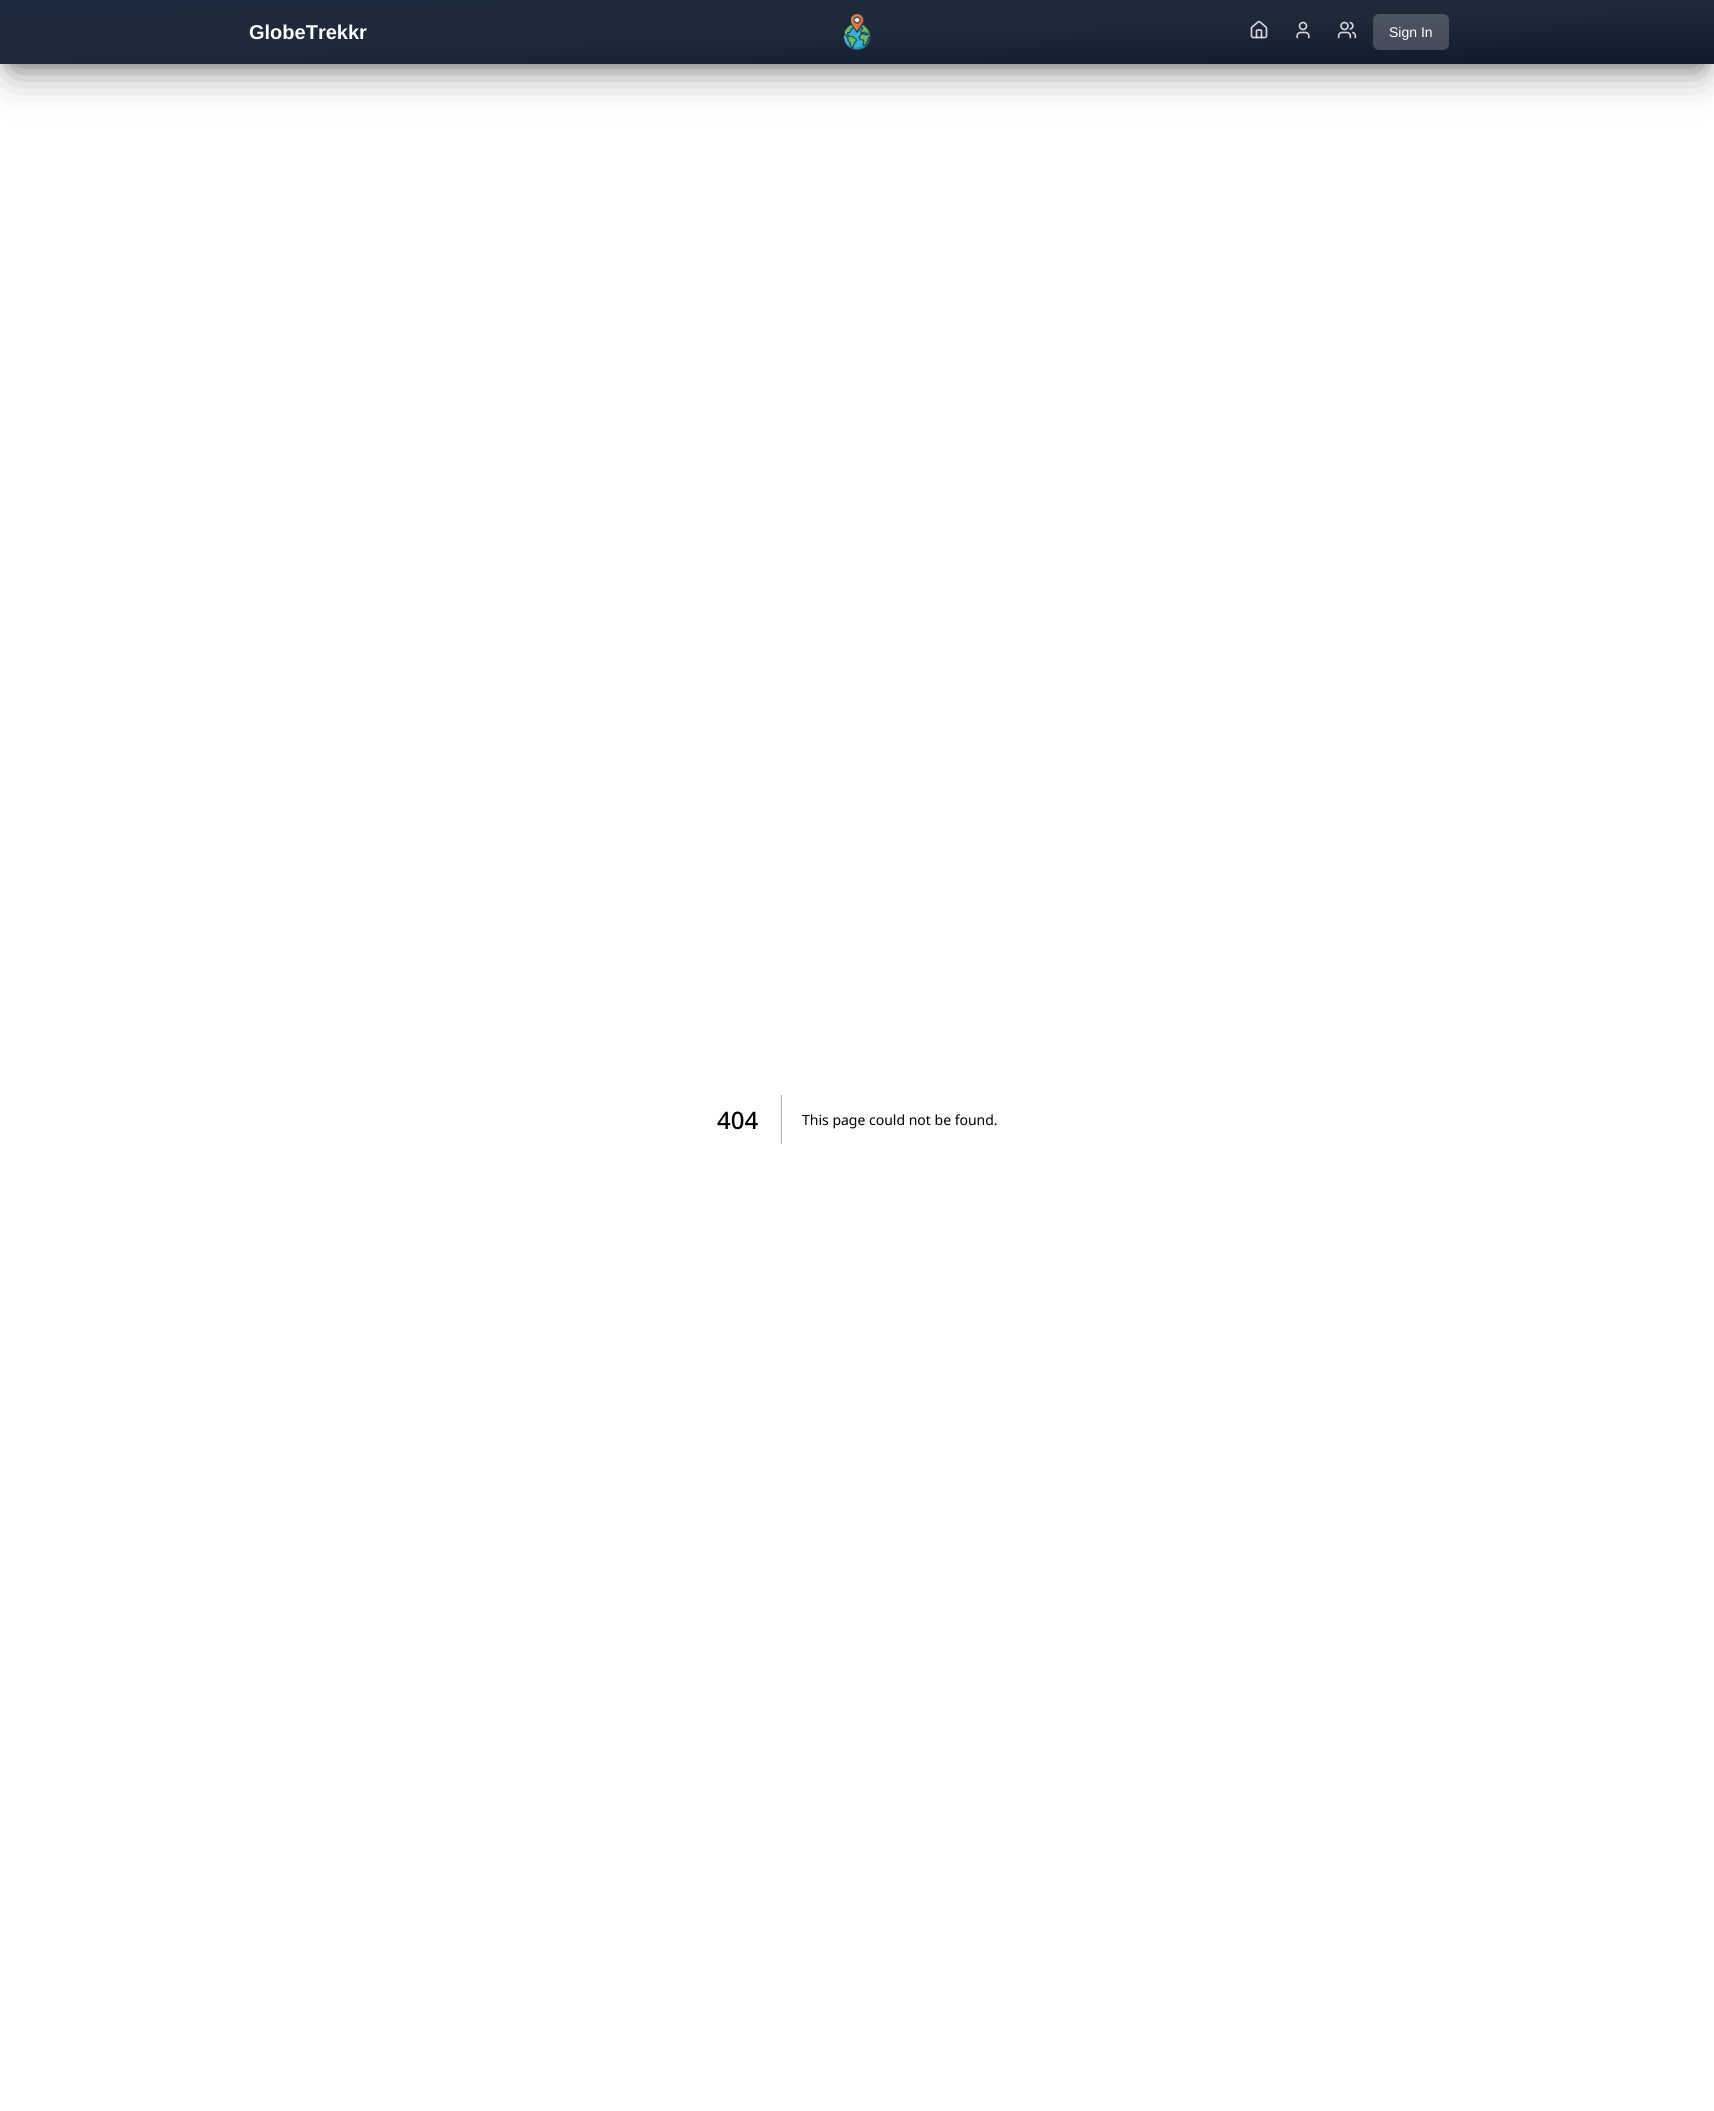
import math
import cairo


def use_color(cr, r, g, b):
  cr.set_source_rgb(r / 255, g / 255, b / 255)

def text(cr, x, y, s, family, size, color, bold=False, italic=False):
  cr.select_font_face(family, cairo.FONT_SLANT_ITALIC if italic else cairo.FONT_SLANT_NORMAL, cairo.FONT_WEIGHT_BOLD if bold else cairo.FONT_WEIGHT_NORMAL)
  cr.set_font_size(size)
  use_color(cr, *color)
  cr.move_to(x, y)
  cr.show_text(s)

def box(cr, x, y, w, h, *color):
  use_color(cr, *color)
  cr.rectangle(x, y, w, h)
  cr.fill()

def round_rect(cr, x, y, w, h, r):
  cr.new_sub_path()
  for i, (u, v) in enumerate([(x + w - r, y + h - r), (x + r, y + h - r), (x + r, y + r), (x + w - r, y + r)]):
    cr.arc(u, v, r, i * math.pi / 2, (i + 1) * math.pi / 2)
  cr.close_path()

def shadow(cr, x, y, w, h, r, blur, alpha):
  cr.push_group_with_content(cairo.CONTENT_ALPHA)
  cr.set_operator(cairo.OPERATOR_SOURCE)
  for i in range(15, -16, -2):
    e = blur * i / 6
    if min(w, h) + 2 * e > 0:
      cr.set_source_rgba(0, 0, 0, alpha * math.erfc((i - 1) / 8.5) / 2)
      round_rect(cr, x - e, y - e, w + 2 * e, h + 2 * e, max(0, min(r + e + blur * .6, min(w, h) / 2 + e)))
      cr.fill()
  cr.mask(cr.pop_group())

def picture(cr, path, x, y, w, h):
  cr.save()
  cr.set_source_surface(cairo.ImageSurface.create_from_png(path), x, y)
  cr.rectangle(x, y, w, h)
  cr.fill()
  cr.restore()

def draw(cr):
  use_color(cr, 255, 255, 255)
  cr.paint()
  use_color(cr, 0, 0, 0)
  shadow(cr, 8, 16, 1698, 48, 0, 8, 0.3)
  shadow(cr, 12, 32, 1690, 40, 0, 20, 0.4)
  gradient = cairo.LinearGradient(855, -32, 859, 96)
  gradient.add_color_stop_rgba(0, 0.114, 0.161, 0.239, 1)
  gradient.add_color_stop_rgba(0.5, 0.118, 0.161, 0.224, 1)
  gradient.add_color_stop_rgba(1, 0.059, 0.09, 0.169, 1)
  cr.set_source(gradient)
  cr.rectangle(0, 0, 1714, 64)
  cr.fill()
  picture(cr, "img_01.png", 842, 12, 30, 39)
  picture(cr, "img_02.png", 1250, 20, 18, 19)
  picture(cr, "img_03.png", 1296, 21, 14, 18)
  picture(cr, "img_04.png", 1337, 21, 20, 18)
  cr.set_source_rgba(1, 1, 1, 0.2)
  round_rect(cr, 1373, 14, 76, 36, 6)
  cr.fill()
  box(cr, 781, 1095, 1, 49, 179, 179, 179)
  text(cr, 249, 39, "GlobeTrekkr", "Liberation Sans", 20, (255, 255, 255), bold=True)
  text(cr, 1389, 37, "Sign In", "Liberation Sans", 14, (255, 255, 255))
  text(cr, 717, 1129, "404", "Noto Sans Medium", 24, (0, 0, 0))
  text(cr, 802, 1125, "This page could not be found.", "Noto Sans", 14, (0, 0, 0))


surface = cairo.ImageSurface(cairo.FORMAT_RGB24, 1714, 2111)
cr = cairo.Context(surface)
options = cairo.FontOptions()
options.set_hint_metrics(cairo.HINT_METRICS_OFF)
options.set_hint_style(cairo.HINT_STYLE_NONE)
cr.set_font_options(options)
cr.set_miter_limit(4)
draw(cr)
surface.write_to_png("out.png")
